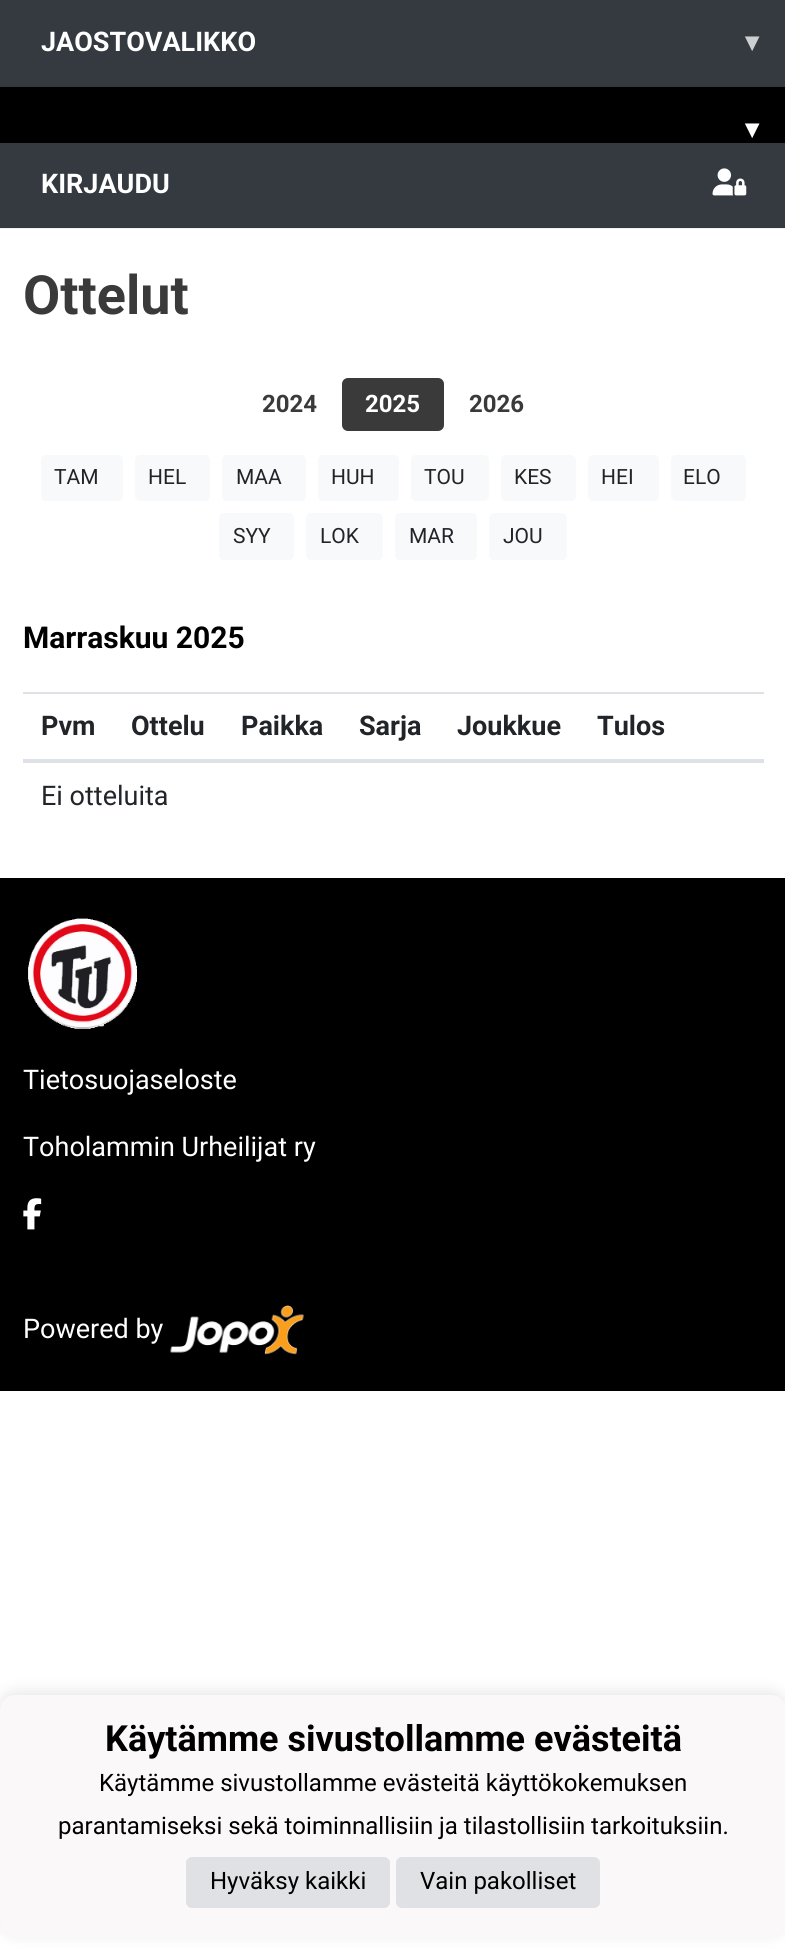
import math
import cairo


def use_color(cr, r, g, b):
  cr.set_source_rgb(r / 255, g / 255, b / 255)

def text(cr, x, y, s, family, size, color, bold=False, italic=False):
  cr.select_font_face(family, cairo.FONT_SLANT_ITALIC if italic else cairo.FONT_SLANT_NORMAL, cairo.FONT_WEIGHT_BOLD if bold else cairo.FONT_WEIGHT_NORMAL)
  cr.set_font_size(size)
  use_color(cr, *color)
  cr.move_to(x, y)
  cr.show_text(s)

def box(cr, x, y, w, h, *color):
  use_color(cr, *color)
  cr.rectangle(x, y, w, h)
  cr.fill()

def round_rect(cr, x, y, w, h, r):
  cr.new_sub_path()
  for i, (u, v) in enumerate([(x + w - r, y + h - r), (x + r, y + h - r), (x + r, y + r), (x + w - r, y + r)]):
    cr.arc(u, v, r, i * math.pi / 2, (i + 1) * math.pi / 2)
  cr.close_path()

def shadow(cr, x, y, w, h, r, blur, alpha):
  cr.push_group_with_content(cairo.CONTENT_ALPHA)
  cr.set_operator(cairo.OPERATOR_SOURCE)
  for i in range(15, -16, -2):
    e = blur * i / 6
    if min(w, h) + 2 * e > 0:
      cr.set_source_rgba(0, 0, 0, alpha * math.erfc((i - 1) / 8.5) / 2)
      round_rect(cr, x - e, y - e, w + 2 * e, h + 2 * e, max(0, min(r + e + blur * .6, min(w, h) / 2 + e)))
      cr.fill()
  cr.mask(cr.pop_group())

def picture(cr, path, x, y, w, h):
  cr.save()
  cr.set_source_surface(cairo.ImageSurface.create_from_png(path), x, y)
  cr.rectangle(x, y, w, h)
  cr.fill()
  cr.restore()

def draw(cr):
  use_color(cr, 255, 255, 255)
  cr.paint()
  box(cr, 0, 228, 785, 1, 242, 242, 242)
  box(cr, 0, 0, 785, 86, 52, 58, 64)
  box(cr, 0, 86, 785, 1, 49, 55, 61)
  box(cr, 0, 87, 785, 56, 0, 0, 0)
  box(cr, 0, 143, 785, 84, 52, 58, 64)
  box(cr, 0, 227, 785, 1, 49, 55, 61)
  picture(cr, "img_01.png", 712, 168, 35, 28)
  use_color(cr, 58, 58, 58)
  round_rect(cr, 342, 378, 102, 53, 6)
  cr.fill()
  use_color(cr, 248, 249, 250)
  round_rect(cr, 41, 455, 82, 46, 5)
  cr.fill()
  round_rect(cr, 135, 455, 75, 46, 5)
  cr.fill()
  round_rect(cr, 222, 455, 84, 46, 5)
  cr.fill()
  round_rect(cr, 318, 455, 81, 46, 5)
  cr.fill()
  round_rect(cr, 411, 455, 78, 46, 5)
  cr.fill()
  round_rect(cr, 501, 455, 75, 46, 5)
  cr.fill()
  round_rect(cr, 588, 455, 71, 46, 5)
  cr.fill()
  round_rect(cr, 671, 455, 75, 46, 5)
  cr.fill()
  round_rect(cr, 219, 513, 75, 47, 5)
  cr.fill()
  round_rect(cr, 306, 513, 77, 47, 5)
  cr.fill()
  round_rect(cr, 395, 513, 82, 47, 5)
  cr.fill()
  round_rect(cr, 489, 513, 78, 47, 5)
  cr.fill()
  box(cr, 23, 692, 741, 2, 222, 226, 230)
  box(cr, 23, 759, 741, 3, 222, 226, 230)
  box(cr, 23, 762, 741, 1, 222, 226, 230)
  box(cr, 0, 878, 785, 513, 0, 0, 0)
  picture(cr, "img_02.png", 28, 918, 109, 111)
  picture(cr, "img_03.png", 23, 1198, 19, 32)
  picture(cr, "img_04.png", 170, 1305, 134, 50)
  use_color(cr, 0, 0, 0)
  shadow(cr, 0, 1692, 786, 242, 15, 7.5, 0.1)
  use_color(cr, 250, 248, 248)
  round_rect(cr, 0, 1695, 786, 242, 15)
  cr.fill()
  use_color(cr, 223, 225, 229)
  round_rect(cr, 186, 1857, 204, 51, 6)
  cr.fill()
  round_rect(cr, 396, 1857, 204, 51, 6)
  cr.fill()
  text(cr, 41, 51, "JAOSTOVALIKKO", "Roboto", 27, (255, 255, 255), bold=True)
  text(cr, 745, 51, "▾", "DejaVu Sans", 27, (204, 206, 207), bold=True)
  text(cr, 745, 138, "▾", "DejaVu Sans", 27, (255, 255, 255), bold=True)
  text(cr, 41, 193, "KIRJAUDU", "Roboto", 27, (255, 255, 255), bold=True)
  text(cr, 23, 314, "Ottelut", "Roboto", 54, (58, 58, 58), bold=True)
  text(cr, 262, 412, "2024", "Roboto", 24, (58, 58, 58), bold=True)
  text(cr, 365, 412, "2025", "Roboto", 24, (255, 255, 255), bold=True)
  text(cr, 469, 412, "2026", "Roboto", 24, (58, 58, 58), bold=True)
  text(cr, 54, 484, "TAM", "Roboto", 21, (33, 37, 41))
  text(cr, 148, 484, "HEL", "Roboto", 21, (33, 37, 41))
  text(cr, 236, 484, "MAA", "Roboto", 21, (33, 37, 41))
  text(cr, 331, 484, "HUH", "Roboto", 21, (33, 37, 41))
  text(cr, 424, 484, "TOU", "Roboto", 21, (33, 37, 41))
  text(cr, 514, 484, "KES", "Roboto", 21, (33, 37, 41))
  text(cr, 601, 484, "HEI", "Roboto", 21, (33, 37, 41))
  text(cr, 683, 484, "ELO", "Roboto", 21, (33, 37, 41))
  text(cr, 233, 543, "SYY", "Roboto", 21, (33, 37, 41))
  text(cr, 320, 543, "LOK", "Roboto", 21, (33, 37, 41))
  text(cr, 409, 543, "MAR", "Roboto", 21, (33, 37, 41))
  text(cr, 503, 543, "JOU", "Roboto", 21, (33, 37, 41))
  text(cr, 23, 648, "Marraskuu 2025", "Roboto", 30, (0, 0, 0), bold=True)
  text(cr, 41, 735, "Pvm", "Roboto", 27, (33, 37, 41), bold=True)
  text(cr, 131, 735, "Ottelu", "Roboto", 27, (33, 37, 41), bold=True)
  text(cr, 241, 735, "Paikka", "Roboto", 27, (33, 37, 41), bold=True)
  text(cr, 359, 735, "Sarja", "Roboto", 27, (33, 37, 41), bold=True)
  text(cr, 457, 735, "Joukkue", "Roboto", 27, (33, 37, 41), bold=True)
  text(cr, 597, 735, "Tulos", "Roboto", 27, (33, 37, 41), bold=True)
  text(cr, 41, 805, "Ei otteluita", "Roboto", 27, (33, 37, 41))
  text(cr, 23, 1089, "Tietosuojaseloste", "Roboto", 27, (255, 255, 255))
  text(cr, 23, 1156, "Toholammin Urheilijat ry", "Roboto", 27, (255, 255, 255))
  text(cr, 23, 1338, "Powered by", "Roboto", 27, (255, 255, 255))
  text(cr, 105, 1751, "Käytämme sivustollamme evästeitä", "Roboto", 36, (0, 0, 0), bold=True)
  text(cr, 99, 1791, "Käytämme sivustollamme evästeitä käyttökokemuksen", "Roboto", 24, (0, 0, 0))
  text(cr, 58, 1834, "parantamiseksi sekä toiminnallisiin ja tilastollisiin tarkoituksiin.", "Roboto", 24, (0, 0, 0))
  text(cr, 210, 1889, "Hyväksy kaikki", "Roboto", 24, (0, 0, 0))
  text(cr, 420, 1889, "Vain pakolliset", "Roboto", 24, (0, 0, 0))


surface = cairo.ImageSurface(cairo.FORMAT_RGB24, 785, 1955)
cr = cairo.Context(surface)
options = cairo.FontOptions()
options.set_hint_metrics(cairo.HINT_METRICS_OFF)
options.set_hint_style(cairo.HINT_STYLE_NONE)
cr.set_font_options(options)
cr.set_miter_limit(4)
draw(cr)
surface.write_to_png("out.png")
